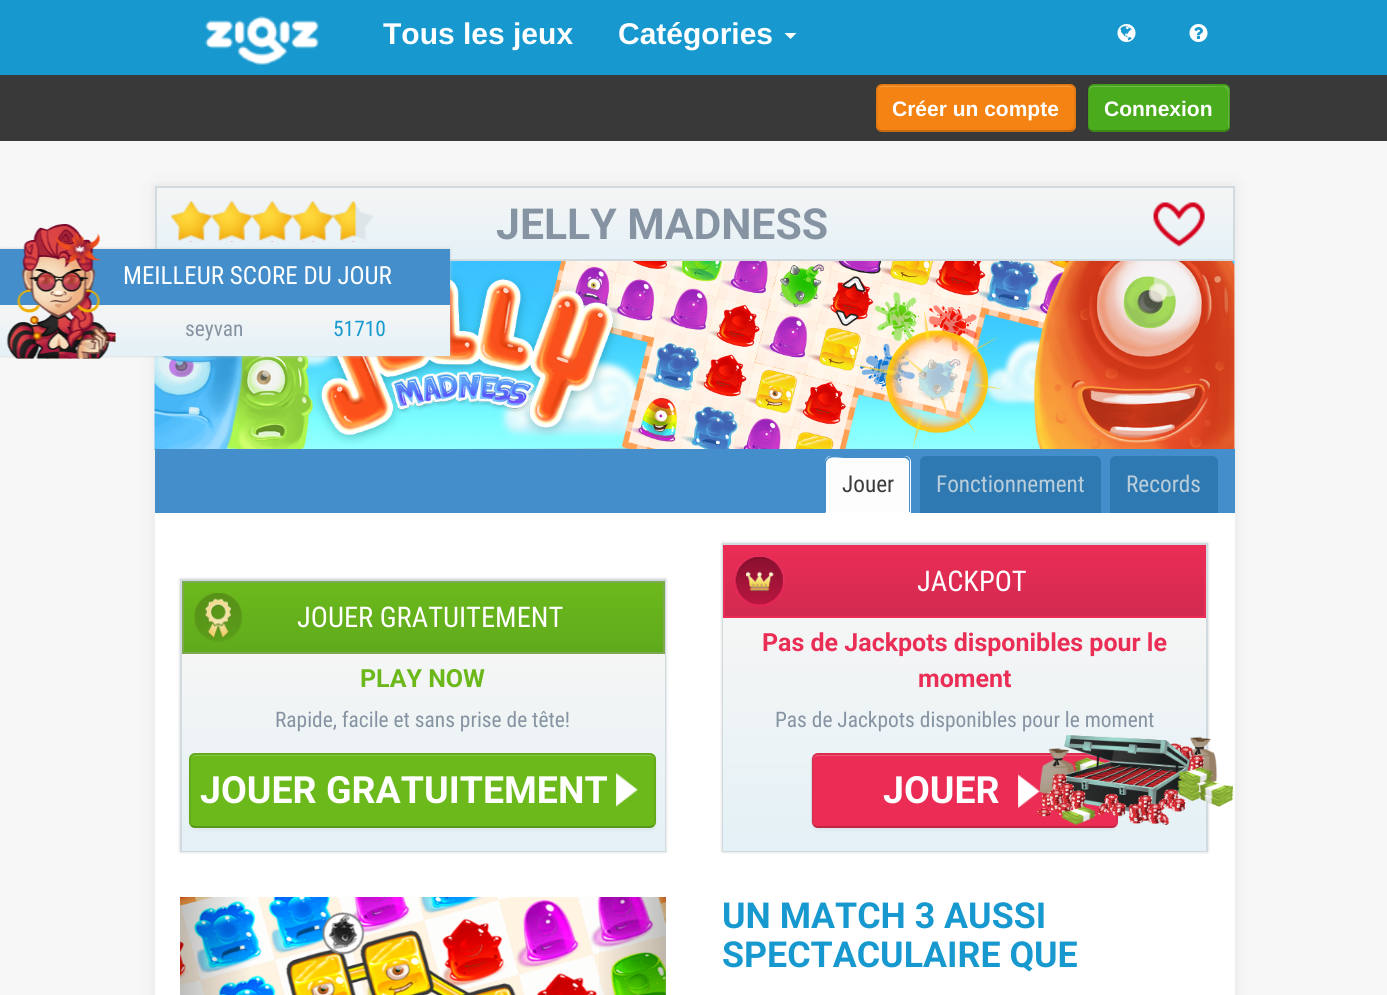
import math
import cairo


def use_color(cr, r, g, b):
  cr.set_source_rgb(r / 255, g / 255, b / 255)

def text(cr, x, y, s, family, size, color, bold=False, italic=False):
  cr.select_font_face(family, cairo.FONT_SLANT_ITALIC if italic else cairo.FONT_SLANT_NORMAL, cairo.FONT_WEIGHT_BOLD if bold else cairo.FONT_WEIGHT_NORMAL)
  cr.set_font_size(size)
  use_color(cr, *color)
  cr.move_to(x, y)
  cr.show_text(s)

def box(cr, x, y, w, h, *color):
  use_color(cr, *color)
  cr.rectangle(x, y, w, h)
  cr.fill()

def round_rect(cr, x, y, w, h, r):
  cr.new_sub_path()
  for i, (u, v) in enumerate([(x + w - r, y + h - r), (x + r, y + h - r), (x + r, y + r), (x + w - r, y + r)]):
    cr.arc(u, v, r, i * math.pi / 2, (i + 1) * math.pi / 2)
  cr.close_path()

def shadow(cr, x, y, w, h, r, blur, alpha):
  cr.push_group_with_content(cairo.CONTENT_ALPHA)
  cr.set_operator(cairo.OPERATOR_SOURCE)
  for i in range(15, -16, -2):
    e = blur * i / 6
    if min(w, h) + 2 * e > 0:
      cr.set_source_rgba(0, 0, 0, alpha * math.erfc((i - 1) / 8.5) / 2)
      round_rect(cr, x - e, y - e, w + 2 * e, h + 2 * e, max(0, min(r + e + blur * .6, min(w, h) / 2 + e)))
      cr.fill()
  cr.mask(cr.pop_group())

def picture(cr, path, x, y, w, h):
  cr.save()
  cr.set_source_surface(cairo.ImageSurface.create_from_png(path), x, y)
  cr.rectangle(x, y, w, h)
  cr.fill()
  cr.restore()

def draw(cr):
  use_color(cr, 247, 247, 247)
  cr.paint()
  box(cr, 0, 0, 1387, 75, 23, 153, 207)
  picture(cr, "img_01.png", 205, 16, 114, 49)
  use_color(cr, 255, 255, 255)
  cr.new_path()
  cr.move_to(784.5, 33)
  cr.line_to(796.5, 33)
  cr.line_to(790.5, 39)
  cr.close_path()
  cr.fill()
  picture(cr, "img_02.png", 1117, 24, 19, 18)
  picture(cr, "img_03.png", 1189, 24, 19, 18)
  box(cr, 0, 75, 1387, 66, 57, 57, 58)
  use_color(cr, 245, 131, 19)
  round_rect(cr, 876, 84, 200, 48, 6)
  cr.fill()
  use_color(cr, 247, 156, 66)
  cr.new_path()
  cr.move_to(882, 87)
  cr.line_to(1070, 87)
  cr.curve_to(1072, 87, 1074, 89, 1074, 92)
  cr.line_to(1074, 91)
  cr.curve_to(1074, 88, 1072, 86, 1069, 86)
  cr.line_to(883, 86)
  cr.curve_to(880, 86, 878, 88, 878, 91)
  cr.line_to(878, 92)
  cr.curve_to(878, 89, 880, 87, 882, 87)
  cr.close_path()
  cr.fill()
  cr.new_path()
  cr.move_to(1073, 129.5)
  cr.curve_to(1072, 130.5, 1071, 131, 1069.5, 131)
  cr.line_to(882, 131)
  cr.curve_to(880.5, 131, 879.5, 130.5, 878.5, 129.5)
  cr.set_source_rgba(0, 0, 0, 0.25)
  cr.set_line_width(1.5)
  cr.stroke()
  cr.new_path()
  cr.move_to(878.5, 129.5)
  cr.curve_to(875, 126.5, 877, 117.5, 877, 114)
  cr.curve_to(877, 77, 871, 85, 913, 85)
  cr.line_to(1038, 85)
  cr.curve_to(1080.5, 85, 1075, 77, 1075, 114)
  cr.curve_to(1075, 117.5, 1076.5, 126.5, 1073, 129.5)
  cr.set_source_rgba(0, 0, 0, 0.1)
  cr.stroke()
  use_color(cr, 74, 171, 29)
  round_rect(cr, 1088, 84, 142, 48, 6)
  cr.fill()
  use_color(cr, 110, 188, 74)
  cr.new_path()
  cr.move_to(1094, 87)
  cr.line_to(1202, 87)
  cr.curve_to(1229, 87, 1228, 82, 1228, 104)
  cr.line_to(1228, 129)
  cr.curve_to(1229, 128, 1229, 127, 1229, 126)
  cr.line_to(1229, 91)
  cr.curve_to(1229, 88, 1227, 86, 1224, 86)
  cr.line_to(1094, 86)
  cr.curve_to(1091, 86, 1089, 88, 1089, 91)
  cr.line_to(1089, 92)
  cr.curve_to(1089, 89, 1091, 87, 1094, 87)
  cr.close_path()
  cr.fill()
  cr.new_path()
  cr.move_to(1227.5, 129.5)
  cr.curve_to(1226.5, 130.5, 1225.5, 131, 1224, 131)
  cr.line_to(1093.5, 131)
  cr.curve_to(1092, 131, 1091, 130.5, 1090, 129.5)
  cr.set_source_rgba(0, 0, 0, 0.25)
  cr.stroke()
  cr.new_path()
  cr.move_to(1090, 129.5)
  cr.curve_to(1087.5, 127.5, 1088, 123, 1088, 120)
  cr.line_to(1088, 108)
  cr.curve_to(1088, 80, 1084.5, 85, 1115, 85)
  cr.line_to(1224, 85)
  cr.curve_to(1230, 85, 1229, 92, 1229, 96)
  cr.line_to(1229, 114)
  cr.curve_to(1229, 117.5, 1231, 126.5, 1227.5, 129.5)
  cr.set_source_rgba(0, 0, 0, 0.1)
  cr.stroke()
  use_color(cr, 200, 200, 200)
  shadow(cr, 155, 186, 1080, 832, 0, 7.5, 0.4)
  box(cr, 155, 261, 1080, 734, 255, 255, 255)
  gradient = cairo.LinearGradient(695, 187, 695, 260)
  gradient.add_color_stop_rgba(0, 0.961, 0.961, 0.961, 1)
  gradient.add_color_stop_rgba(1, 0.894, 0.945, 0.965, 1)
  cr.set_source(gradient)
  cr.rectangle(157, 188, 1076, 71)
  cr.fill()
  cr.rectangle(156, 187, 1078, 73)
  use_color(cr, 209, 219, 223)
  cr.set_line_width(2)
  cr.stroke()
  picture(cr, "img_04.png", 171, 201, 203, 41)
  picture(cr, "img_05.png", 171, 201, 185, 41)
  picture(cr, "img_06.png", 1153, 202, 52, 45)
  picture(cr, "img_07.png", 154, 261, 1081, 189)
  box(cr, 155, 449, 1080, 64, 68, 143, 203)
  use_color(cr, 253, 253, 254)
  cr.new_path()
  cr.move_to(831, 456)
  cr.line_to(905, 456)
  cr.curve_to(908.5, 456, 911, 458.5, 911, 462)
  cr.line_to(911, 513)
  cr.line_to(825, 513)
  cr.line_to(825, 462)
  cr.curve_to(825, 458.5, 827.5, 456, 831, 456)
  cr.close_path()
  cr.fill()
  use_color(cr, 68, 143, 203)
  cr.new_path()
  cr.move_to(831, 456)
  cr.curve_to(830, 456, 828, 457, 827, 458)
  cr.line_to(828, 459)
  cr.curve_to(832, 456, 841, 458, 843, 458)
  cr.line_to(905, 458)
  cr.line_to(907, 459)
  cr.line_to(909, 458)
  cr.curve_to(908, 457, 906, 456, 904, 456)
  cr.close_path()
  cr.fill()
  cr.new_path()
  cr.move_to(909, 458)
  cr.curve_to(910, 459, 910, 461, 910, 462)
  cr.line_to(910, 512)
  cr.line_to(909, 512)
  cr.line_to(909, 461)
  cr.line_to(907, 459)
  cr.close_path()
  cr.fill()
  cr.new_path()
  cr.move_to(825, 513)
  cr.line_to(826, 512)
  cr.line_to(826, 462)
  cr.line_to(828, 459)
  cr.line_to(827, 458)
  cr.curve_to(826, 459, 825, 460, 825, 462)
  cr.close_path()
  cr.fill()
  use_color(cr, 47, 121, 179)
  cr.new_path()
  cr.move_to(926, 456)
  cr.line_to(1095, 456)
  cr.curve_to(1098.5, 456, 1101, 458.5, 1101, 462)
  cr.line_to(1101, 513)
  cr.line_to(920, 513)
  cr.line_to(920, 462)
  cr.curve_to(920, 458.5, 922.5, 456, 926, 456)
  cr.close_path()
  cr.fill()
  cr.new_path()
  cr.move_to(1116, 456)
  cr.line_to(1212, 456)
  cr.curve_to(1215.5, 456, 1218, 458.5, 1218, 462)
  cr.line_to(1218, 513)
  cr.line_to(1110, 513)
  cr.line_to(1110, 462)
  cr.curve_to(1110, 458.5, 1112.5, 456, 1116, 456)
  cr.close_path()
  cr.fill()
  use_color(cr, 200, 200, 200)
  shadow(cr, 0, 249, 450, 107, 0, 1.5, 0.8)
  box(cr, 0, 249, 450, 56, 68, 143, 203)
  gradient = cairo.LinearGradient(225, 304, 225, 356)
  gradient.add_color_stop_rgba(0, 0.961, 0.961, 0.961, 1)
  gradient.add_color_stop_rgba(1, 0.894, 0.945, 0.965, 1)
  cr.set_source(gradient)
  cr.rectangle(0, 305, 450, 51)
  cr.fill()
  picture(cr, "img_08.png", 6, 224, 110, 135)
  use_color(cr, 200, 200, 200)
  shadow(cr, 180, 579, 486, 273, 0, 1.5, 0.8)
  cr.rectangle(181, 580, 484, 271)
  use_color(cr, 209, 219, 223)
  cr.stroke()
  gradient = cairo.LinearGradient(423, 582, 423, 653)
  gradient.add_color_stop_rgba(0, 0.424, 0.725, 0.11, 1)
  gradient.add_color_stop_rgba(1, 0.373, 0.667, 0.11, 1)
  cr.set_source(gradient)
  cr.rectangle(184, 583, 479, 69)
  cr.fill()
  cr.rectangle(183, 582, 481, 71)
  use_color(cr, 125, 169, 79)
  cr.stroke()
  picture(cr, "img_09.png", 194, 593, 49, 49)
  gradient = cairo.LinearGradient(423, 654, 423, 851)
  gradient.add_color_stop_rgba(0, 0.961, 0.961, 0.961, 1)
  gradient.add_color_stop_rgba(1, 0.894, 0.945, 0.965, 1)
  cr.set_source(gradient)
  cr.rectangle(182, 654, 483, 197)
  cr.fill()
  use_color(cr, 0, 0, 0)
  shadow(cr, 189, 755, 467, 75, 6, 1.5, 0.05)
  use_color(cr, 108, 185, 28)
  round_rect(cr, 189, 753, 467, 75, 6)
  cr.fill()
  use_color(cr, 137, 199, 73)
  cr.new_path()
  cr.move_to(195, 756)
  cr.line_to(650, 756)
  cr.curve_to(652, 756, 654, 758, 654, 760)
  cr.curve_to(654, 757, 652, 755, 649, 755)
  cr.line_to(196, 755)
  cr.curve_to(194, 755, 193, 756, 192, 757)
  cr.close_path()
  cr.fill()
  cr.new_path()
  cr.move_to(653, 825.5)
  cr.curve_to(652, 826.5, 651, 827, 649.5, 827)
  cr.line_to(195, 827)
  cr.curve_to(193.5, 827, 192.5, 826.5, 191.5, 825.5)
  cr.set_source_rgba(0, 0, 0, 0.25)
  cr.set_line_width(1.5)
  cr.stroke()
  cr.new_path()
  cr.move_to(191.5, 825.5)
  cr.curve_to(190.5, 824.5, 190, 823.5, 190, 822)
  cr.line_to(190, 759)
  cr.curve_to(190, 757.5, 190.5, 756.5, 191.5, 755.5)
  cr.curve_to(192.5, 754.5, 193.5, 754, 195, 754)
  cr.line_to(649.5, 754)
  cr.curve_to(651, 754, 652, 754.5, 653, 755.5)
  cr.curve_to(654, 756.5, 655, 757.5, 655, 759)
  cr.line_to(655, 822)
  cr.curve_to(655, 823.5, 654, 824.5, 653, 825.5)
  cr.set_source_rgba(0, 0, 0, 0.1)
  cr.stroke()
  picture(cr, "img_10.png", 616, 773, 22, 34)
  use_color(cr, 200, 200, 200)
  shadow(cr, 722, 543, 486, 309, 0, 1.5, 0.8)
  cr.rectangle(723, 544, 484, 307)
  use_color(cr, 209, 219, 223)
  cr.set_line_width(2)
  cr.stroke()
  gradient = cairo.LinearGradient(965, 546, 965, 617)
  gradient.add_color_stop_rgba(0, 0.922, 0.176, 0.333, 1)
  gradient.add_color_stop_rgba(1, 0.82, 0.165, 0.314, 1)
  cr.set_source(gradient)
  cr.rectangle(725, 547, 479, 69)
  cr.fill()
  cr.rectangle(724, 546, 481, 71)
  use_color(cr, 235, 45, 85)
  cr.stroke()
  picture(cr, "img_11.png", 734, 555, 51, 52)
  gradient = cairo.LinearGradient(965, 618, 965, 851)
  gradient.add_color_stop_rgba(0, 0.961, 0.961, 0.961, 1)
  gradient.add_color_stop_rgba(1, 0.894, 0.945, 0.965, 1)
  cr.set_source(gradient)
  cr.rectangle(723, 618, 483, 233)
  cr.fill()
  use_color(cr, 0, 0, 0)
  shadow(cr, 812, 755, 306, 75, 6, 1.5, 0.05)
  use_color(cr, 235, 45, 85)
  round_rect(cr, 812, 753, 306, 75, 6)
  cr.fill()
  use_color(cr, 239, 87, 119)
  cr.new_path()
  cr.move_to(818, 756)
  cr.line_to(1112, 756)
  cr.curve_to(1114, 756, 1116, 758, 1116, 760)
  cr.curve_to(1116, 757, 1114, 755, 1111, 755)
  cr.line_to(818, 755)
  cr.curve_to(815, 755, 813, 757, 813, 760)
  cr.curve_to(813, 758, 815, 756, 818, 756)
  cr.close_path()
  cr.fill()
  cr.new_path()
  cr.move_to(1115, 825.5)
  cr.curve_to(1114, 826.5, 1113, 827, 1111.5, 827)
  cr.line_to(817.5, 827)
  cr.curve_to(816, 827, 815, 826.5, 814, 825.5)
  cr.set_source_rgba(0, 0, 0, 0.25)
  cr.set_line_width(1.5)
  cr.stroke()
  cr.new_path()
  cr.move_to(814, 825.5)
  cr.curve_to(813, 824.5, 812, 823.5, 812, 822)
  cr.line_to(812, 759)
  cr.curve_to(812, 757.5, 813, 756.5, 814, 755.5)
  cr.curve_to(815, 754.5, 816, 754, 817.5, 754)
  cr.line_to(1111.5, 754)
  cr.curve_to(1113, 754, 1114, 754.5, 1115, 755.5)
  cr.curve_to(1116, 756.5, 1117, 757.5, 1117, 759)
  cr.line_to(1117, 822)
  cr.curve_to(1117, 823.5, 1116, 824.5, 1115, 825.5)
  cr.set_source_rgba(0, 0, 0, 0.1)
  cr.stroke()
  picture(cr, "img_12.png", 1018, 774, 22, 34)
  picture(cr, "img_13.png", 1037, 735, 197, 90)
  picture(cr, "img_14.png", 180, 897, 486, 98)
  gradient = cairo.LinearGradient(593, 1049, 666, 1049)
  gradient.add_color_stop_rgba(0, 0, 0, 0, 0)
  gradient.add_color_stop_rgba(1, 0, 0, 0, 0.25)
  cr.set_source(gradient)
  cr.rectangle(599, 897, 67, 98)
  cr.fill()
  text(cr, 383, 44, "Tous les jeux", "Liberation Sans", 30, (255, 255, 255), bold=True)
  text(cr, 618, 44, "Catégories", "Liberation Sans", 30, (255, 255, 255), bold=True)
  text(cr, 892, 116, "Créer un compte", "Liberation Sans", 21, (255, 255, 255), bold=True)
  text(cr, 1104, 116, "Connexion", "Liberation Sans", 21, (255, 255, 255), bold=True)
  text(cr, 496, 239, "JELLY MADNESS", "Roboto", 42.75, (134, 147, 162), bold=True)
  text(cr, 842, 492, "Jouer", "Roboto Condensed", 23.25, (60, 60, 60))
  text(cr, 936, 492, "Fonctionnement", "Roboto Condensed", 23.25, (185, 206, 218))
  text(cr, 1126, 492, "Records", "Roboto Condensed", 23.25, (185, 206, 218))
  text(cr, 123, 284, "MEILLEUR SCORE DU JOUR", "Roboto Condensed", 25, (255, 255, 255))
  text(cr, 185, 336, "seyvan", "Roboto Condensed", 21.4, (134, 147, 162))
  text(cr, 333, 336, "51710", "Roboto Condensed", 21.4, (23, 153, 207))
  text(cr, 297, 627, "JOUER GRATUITEMENT", "Roboto Condensed", 28.5, (255, 255, 255))
  text(cr, 360, 687, "PLAY NOW", "Roboto", 25, (108, 184, 27), bold=True)
  text(cr, 275, 727, "Rapide, facile et sans prise de tête!", "Roboto Condensed", 21.4, (134, 147, 162))
  text(cr, 200, 803, "JOUER GRATUITEMENT", "Roboto", 37.5, (255, 255, 255), bold=True)
  text(cr, 917, 591, "JACKPOT", "Roboto Condensed", 28.5, (255, 255, 255))
  text(cr, 762, 651, "Pas de Jackpots disponibles pour le", "Roboto", 25, (234, 46, 86), bold=True)
  text(cr, 918, 687, "moment", "Roboto", 25, (234, 46, 86), bold=True)
  text(cr, 775, 727, "Pas de Jackpots disponibles pour le moment", "Roboto Condensed", 21.4, (134, 147, 162))
  text(cr, 883, 803, "JOUER", "Roboto", 37.5, (255, 255, 255), bold=True)
  text(cr, 722, 928, "UN MATCH 3 AUSSI", "Roboto", 35.75, (23, 153, 207), bold=True)
  text(cr, 722, 967, "SPECTACULAIRE QUE", "Roboto", 35.75, (23, 153, 207), bold=True)


surface = cairo.ImageSurface(cairo.FORMAT_RGB24, 1387, 995)
cr = cairo.Context(surface)
options = cairo.FontOptions()
options.set_hint_metrics(cairo.HINT_METRICS_OFF)
options.set_hint_style(cairo.HINT_STYLE_NONE)
cr.set_font_options(options)
cr.set_miter_limit(4)
draw(cr)
surface.write_to_png("out.png")
